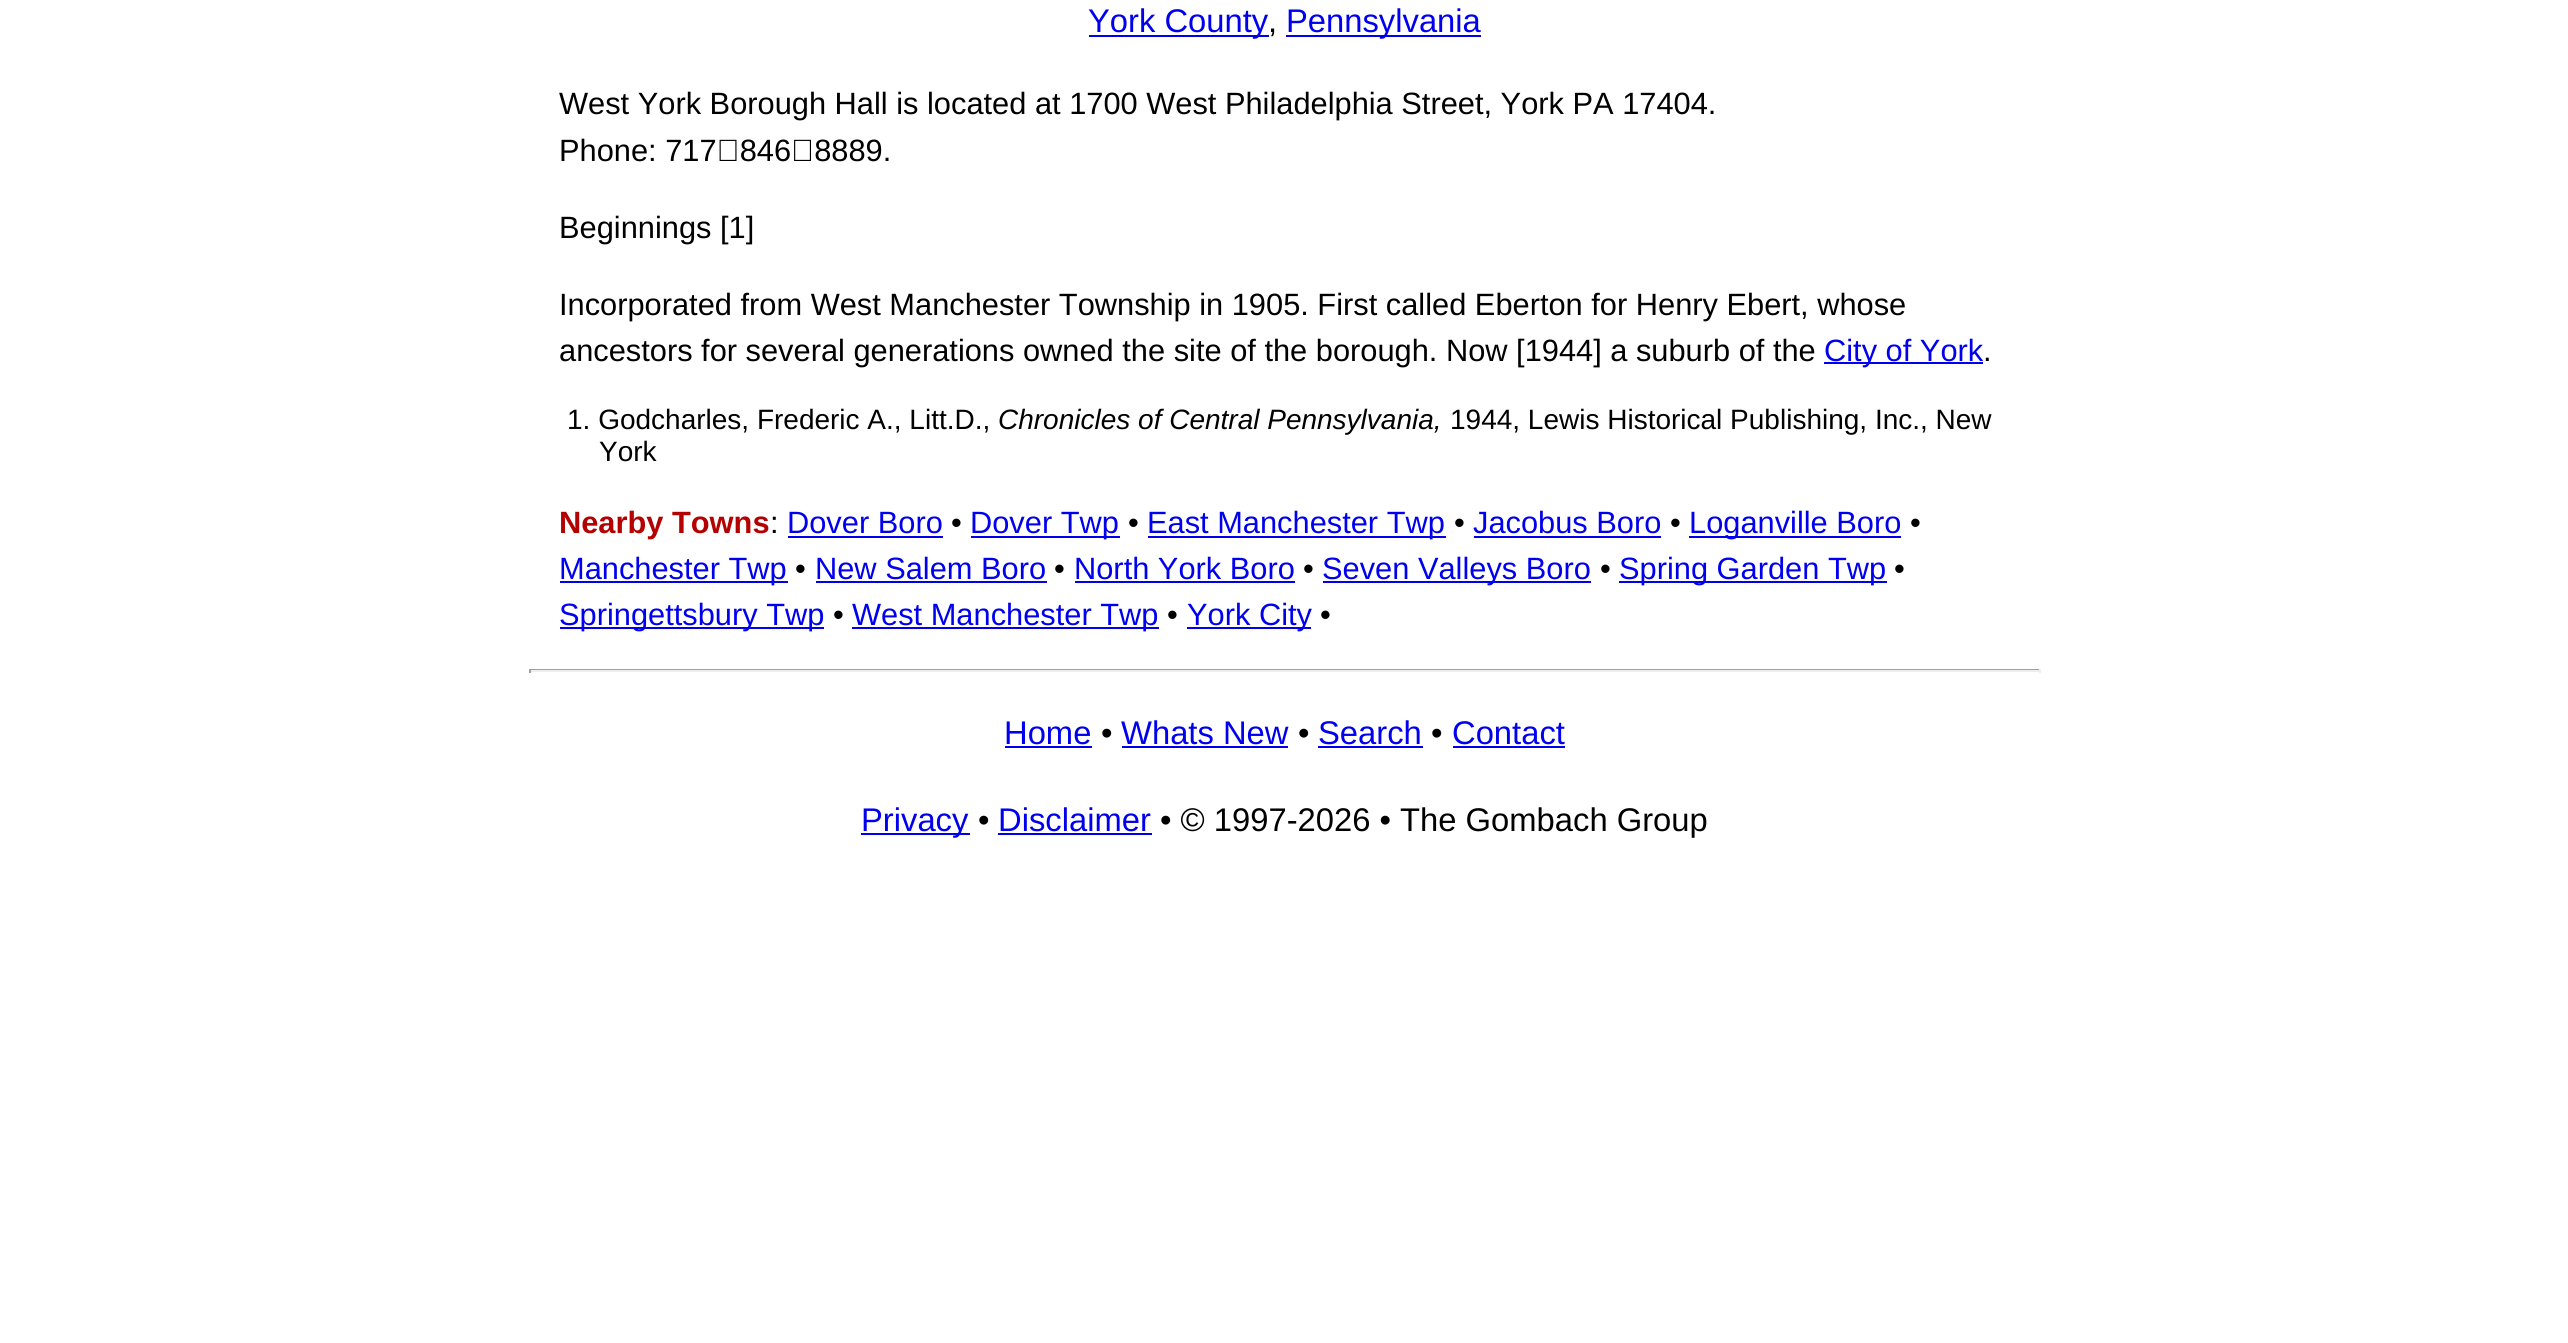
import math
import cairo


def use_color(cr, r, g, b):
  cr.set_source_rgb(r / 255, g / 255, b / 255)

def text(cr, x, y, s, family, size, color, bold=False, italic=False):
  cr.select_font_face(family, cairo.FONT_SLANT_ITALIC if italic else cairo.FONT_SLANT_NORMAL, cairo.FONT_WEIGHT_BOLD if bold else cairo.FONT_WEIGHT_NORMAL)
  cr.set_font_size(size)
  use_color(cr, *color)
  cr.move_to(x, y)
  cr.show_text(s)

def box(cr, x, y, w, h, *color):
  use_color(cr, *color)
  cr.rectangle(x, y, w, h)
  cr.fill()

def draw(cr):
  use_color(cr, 255, 255, 255)
  cr.paint()
  box(cr, 1089, 35, 180, 2, 0, 0, 238)
  box(cr, 1286, 35, 195, 2, 0, 0, 238)
  box(cr, 1824, 362, 159, 2, 0, 0, 238)
  box(cr, 788, 536, 155, 2, 0, 0, 238)
  box(cr, 971, 536, 149, 2, 0, 0, 238)
  box(cr, 1148, 536, 298, 2, 0, 0, 238)
  box(cr, 1474, 536, 187, 2, 0, 0, 238)
  box(cr, 1689, 536, 212, 2, 0, 0, 238)
  box(cr, 560, 581, 228, 2, 0, 0, 238)
  box(cr, 816, 581, 231, 2, 0, 0, 238)
  box(cr, 1075, 581, 220, 2, 0, 0, 238)
  box(cr, 1323, 581, 268, 2, 0, 0, 238)
  box(cr, 1619, 581, 268, 2, 0, 0, 238)
  box(cr, 560, 627, 264, 2, 0, 0, 238)
  box(cr, 852, 627, 307, 2, 0, 0, 238)
  box(cr, 1187, 627, 124, 2, 0, 0, 238)
  box(cr, 529, 669, 1512, 1, 159, 159, 159)
  box(cr, 2039, 669, 2, 4, 238, 238, 238)
  box(cr, 529, 670, 1512, 2, 238, 238, 238)
  box(cr, 529, 669, 2, 4, 159, 159, 159)
  box(cr, 1005, 746, 87, 2, 0, 0, 238)
  box(cr, 1122, 746, 166, 2, 0, 0, 238)
  box(cr, 1318, 746, 105, 2, 0, 0, 238)
  box(cr, 1453, 746, 112, 2, 0, 0, 238)
  box(cr, 861, 833, 109, 2, 0, 0, 238)
  box(cr, 998, 833, 154, 2, 0, 0, 238)
  text(cr, 1088, 32, "York County", "Liberation Sans", 32.75, (0, 0, 238))
  text(cr, 1268, 32, ",", "Liberation Sans", 32.75, (0, 0, 0))
  text(cr, 1286, 32, "Pennsylvania", "Liberation Sans", 32.75, (0, 0, 238))
  text(cr, 559, 114, "West York Borough Hall is located at 1700 West Philadelphia Street, York PA 17404.", "Liberation Sans", 30.8, (0, 0, 0))
  text(cr, 559, 161, "Phone: 717‑846‑8889.", "Liberation Sans", 30.8, (0, 0, 0))
  text(cr, 559, 238, "Beginnings [1]", "Liberation Sans", 30.8, (0, 0, 0))
  text(cr, 559, 315, "Incorporated from West Manchester Township in 1905. First called Eberton for Henry Ebert, whose", "Liberation Sans", 30.8, (0, 0, 0))
  text(cr, 559, 361, "ancestors for several generations owned the site of the borough. Now [1944] a suburb of the", "Liberation Sans", 30.8, (0, 0, 0))
  text(cr, 1824, 361, "City of York", "Liberation Sans", 30.8, (0, 0, 238))
  text(cr, 1983, 361, ".", "Liberation Sans", 30.8, (0, 0, 0))
  text(cr, 567, 429, "1. Godcharles, Frederic A., Litt.D.,", "Liberation Sans", 28, (0, 0, 0))
  text(cr, 998, 429, "Chronicles of Central Pennsylvania,", "Liberation Sans", 28, (0, 0, 0), italic=True)
  text(cr, 1450, 429, "1944, Lewis Historical Publishing, Inc., New", "Liberation Sans", 28, (0, 0, 0))
  text(cr, 599, 461, "York", "Liberation Sans", 28, (0, 0, 0))
  text(cr, 559, 533, "Nearby Towns", "Liberation Sans", 30.8, (180, 1, 1), bold=True)
  text(cr, 770, 533, ":", "Liberation Sans", 30.8, (0, 0, 0))
  text(cr, 787, 533, "Dover Boro", "Liberation Sans", 30.8, (0, 0, 238))
  text(cr, 951, 533, "•", "Liberation Sans", 30.8, (0, 0, 0))
  text(cr, 970, 533, "Dover Twp", "Liberation Sans", 30.8, (0, 0, 238))
  text(cr, 1128, 533, "•", "Liberation Sans", 30.8, (0, 0, 0))
  text(cr, 1147, 533, "East Manchester Twp", "Liberation Sans", 30.8, (0, 0, 238))
  text(cr, 1454, 533, "•", "Liberation Sans", 30.8, (0, 0, 0))
  text(cr, 1473, 533, "Jacobus Boro", "Liberation Sans", 30.8, (0, 0, 238))
  text(cr, 1670, 533, "•", "Liberation Sans", 30.8, (0, 0, 0))
  text(cr, 1689, 533, "Loganville Boro", "Liberation Sans", 30.8, (0, 0, 238))
  text(cr, 1910, 533, "•", "Liberation Sans", 30.8, (0, 0, 0))
  text(cr, 559, 579, "Manchester Twp", "Liberation Sans", 30.8, (0, 0, 238))
  text(cr, 795, 579, "•", "Liberation Sans", 30.8, (0, 0, 0))
  text(cr, 815, 579, "New Salem Boro", "Liberation Sans", 30.8, (0, 0, 238))
  text(cr, 1054, 579, "•", "Liberation Sans", 30.8, (0, 0, 0))
  text(cr, 1074, 579, "North York Boro", "Liberation Sans", 30.8, (0, 0, 238))
  text(cr, 1303, 579, "•", "Liberation Sans", 30.8, (0, 0, 0))
  text(cr, 1322, 579, "Seven Valleys Boro", "Liberation Sans", 30.8, (0, 0, 238))
  text(cr, 1600, 579, "•", "Liberation Sans", 30.8, (0, 0, 0))
  text(cr, 1619, 579, "Spring Garden Twp", "Liberation Sans", 30.8, (0, 0, 238))
  text(cr, 1894, 579, "•", "Liberation Sans", 30.8, (0, 0, 0))
  text(cr, 559, 625, "Springettsbury Twp", "Liberation Sans", 30.8, (0, 0, 238))
  text(cr, 833, 625, "•", "Liberation Sans", 30.8, (0, 0, 0))
  text(cr, 852, 625, "West Manchester Twp", "Liberation Sans", 30.8, (0, 0, 238))
  text(cr, 1167, 625, "•", "Liberation Sans", 30.8, (0, 0, 0))
  text(cr, 1187, 625, "York City", "Liberation Sans", 30.8, (0, 0, 238))
  text(cr, 1320, 625, "•", "Liberation Sans", 30.8, (0, 0, 0))
  text(cr, 1004, 744, "Home", "Liberation Sans", 32.75, (0, 0, 238))
  text(cr, 1101, 744, "•", "Liberation Sans", 32.75, (0, 0, 0))
  text(cr, 1121, 744, "Whats New", "Liberation Sans", 32.75, (0, 0, 238))
  text(cr, 1298, 744, "•", "Liberation Sans", 32.75, (0, 0, 0))
  text(cr, 1318, 744, "Search", "Liberation Sans", 32.75, (0, 0, 238))
  text(cr, 1431, 744, "•", "Liberation Sans", 32.75, (0, 0, 0))
  text(cr, 1452, 744, "Contact", "Liberation Sans", 32.75, (0, 0, 238))
  text(cr, 861, 831, "Privacy", "Liberation Sans", 32.75, (0, 0, 238))
  text(cr, 978, 831, "•", "Liberation Sans", 32.75, (0, 0, 0))
  text(cr, 998, 831, "Disclaimer", "Liberation Sans", 32.75, (0, 0, 238))
  text(cr, 1160, 831, "• © 1997-2026 • The Gombach Group", "Liberation Sans", 32.75, (0, 0, 0))


surface = cairo.ImageSurface(cairo.FORMAT_RGB24, 2568, 1343)
cr = cairo.Context(surface)
options = cairo.FontOptions()
options.set_hint_metrics(cairo.HINT_METRICS_OFF)
options.set_hint_style(cairo.HINT_STYLE_NONE)
cr.set_font_options(options)
cr.set_miter_limit(4)
draw(cr)
surface.write_to_png("out.png")
